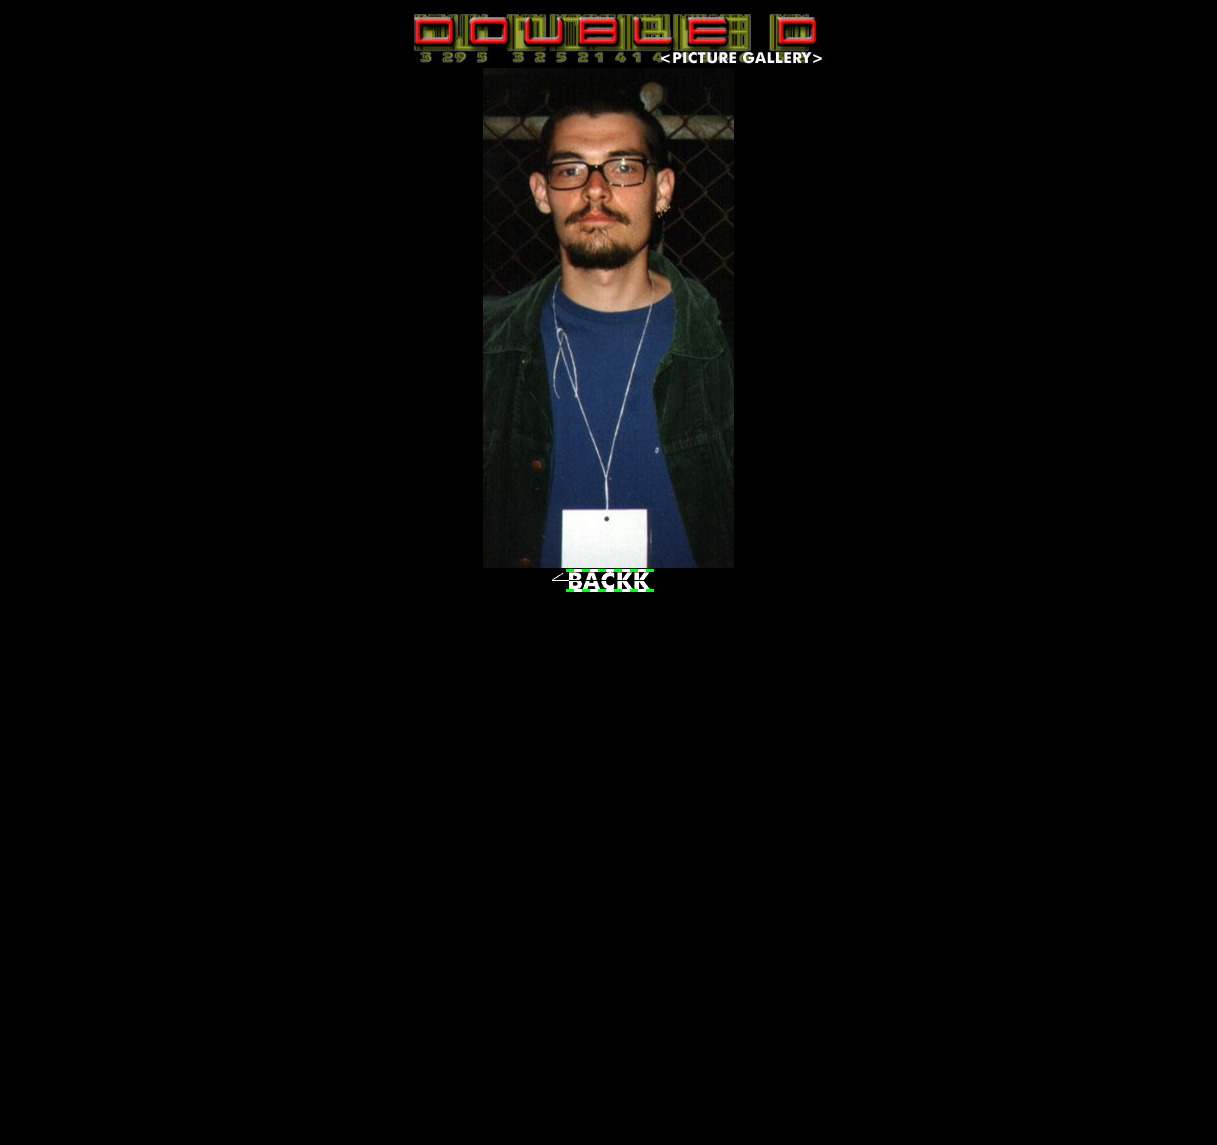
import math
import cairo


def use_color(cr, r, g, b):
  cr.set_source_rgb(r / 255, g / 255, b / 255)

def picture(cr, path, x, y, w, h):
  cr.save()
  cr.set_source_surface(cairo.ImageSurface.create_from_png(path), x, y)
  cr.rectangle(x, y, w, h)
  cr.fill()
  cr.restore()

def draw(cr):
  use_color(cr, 0, 0, 0)
  cr.paint()
  picture(cr, "img_01.png", 411, 8, 416, 56)
  picture(cr, "img_02.png", 483, 68, 251, 500)
  picture(cr, "img_03.png", 552, 569, 102, 23)


surface = cairo.ImageSurface(cairo.FORMAT_RGB24, 1217, 1145)
cr = cairo.Context(surface)
options = cairo.FontOptions()
options.set_hint_metrics(cairo.HINT_METRICS_OFF)
options.set_hint_style(cairo.HINT_STYLE_NONE)
cr.set_font_options(options)
cr.set_miter_limit(4)
draw(cr)
surface.write_to_png("out.png")
